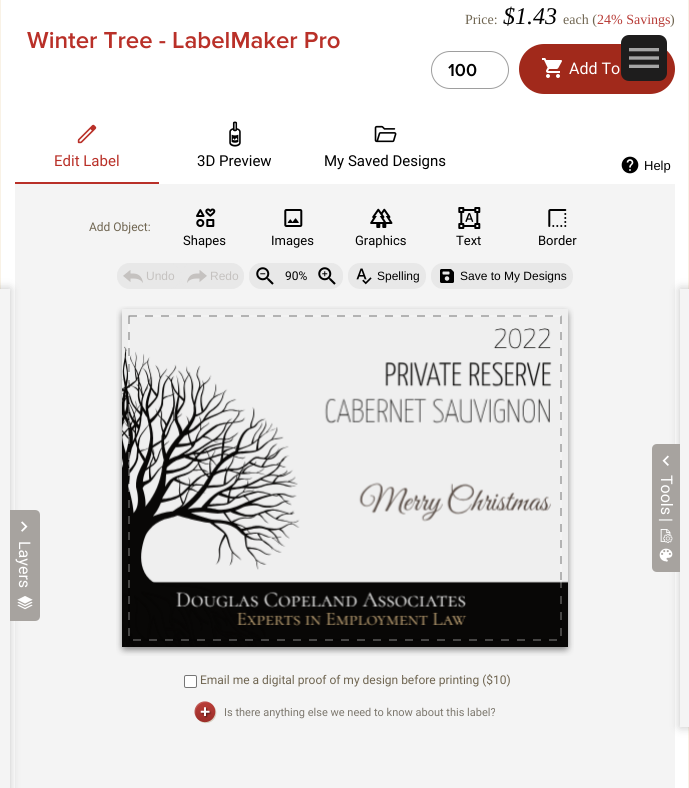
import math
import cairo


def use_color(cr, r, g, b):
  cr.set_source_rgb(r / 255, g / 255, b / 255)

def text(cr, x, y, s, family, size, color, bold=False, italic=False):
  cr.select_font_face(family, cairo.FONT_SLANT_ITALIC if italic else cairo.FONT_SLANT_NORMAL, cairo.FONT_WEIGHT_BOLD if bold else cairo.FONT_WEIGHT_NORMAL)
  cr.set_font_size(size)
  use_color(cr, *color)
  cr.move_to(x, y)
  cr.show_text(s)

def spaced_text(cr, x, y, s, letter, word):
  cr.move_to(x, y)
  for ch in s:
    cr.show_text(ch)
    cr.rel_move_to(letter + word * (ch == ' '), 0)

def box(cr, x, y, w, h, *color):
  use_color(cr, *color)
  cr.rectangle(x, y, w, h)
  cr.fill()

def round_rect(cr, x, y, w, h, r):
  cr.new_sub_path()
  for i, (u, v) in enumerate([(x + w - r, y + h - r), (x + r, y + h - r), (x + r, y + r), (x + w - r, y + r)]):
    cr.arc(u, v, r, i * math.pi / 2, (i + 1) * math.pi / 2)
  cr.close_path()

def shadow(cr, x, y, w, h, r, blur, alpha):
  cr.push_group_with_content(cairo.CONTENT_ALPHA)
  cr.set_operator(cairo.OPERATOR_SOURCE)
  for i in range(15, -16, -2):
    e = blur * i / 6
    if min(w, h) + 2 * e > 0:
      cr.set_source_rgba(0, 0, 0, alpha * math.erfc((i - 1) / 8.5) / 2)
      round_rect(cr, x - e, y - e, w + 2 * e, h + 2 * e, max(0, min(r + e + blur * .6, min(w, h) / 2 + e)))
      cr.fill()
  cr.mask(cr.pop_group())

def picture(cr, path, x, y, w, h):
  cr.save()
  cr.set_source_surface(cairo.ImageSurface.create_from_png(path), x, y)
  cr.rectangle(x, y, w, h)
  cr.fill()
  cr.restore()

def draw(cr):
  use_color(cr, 255, 255, 255)
  cr.paint()
  box(cr, 688, 0, 1, 788, 249, 242, 230)
  box(cr, 0, 0, 1, 289, 249, 242, 230)
  round_rect(cr, 431.5, 51.5, 77, 37, 18.5)
  use_color(cr, 158, 158, 158)
  cr.set_line_width(1)
  cr.stroke()
  use_color(cr, 161, 41, 27)
  round_rect(cr, 519, 44, 156, 50, 25)
  cr.fill()
  picture(cr, "img_01.png", 542, 58, 20, 20)
  box(cr, 15, 182, 144, 2, 185, 48, 40)
  picture(cr, "img_02.png", 77, 124, 20, 20)
  picture(cr, "img_03.png", 229, 121, 12, 26)
  picture(cr, "img_04.png", 374, 125, 23, 18)
  picture(cr, "img_05.png", 621, 156, 18, 18)
  box(cr, 15, 184, 660, 604, 244, 244, 244)
  picture(cr, "img_06.png", 196, 208, 20, 19)
  picture(cr, "img_07.png", 284, 209, 19, 18)
  picture(cr, "img_08.png", 370, 208, 23, 20)
  picture(cr, "img_09.png", 458, 207, 23, 22)
  picture(cr, "img_10.png", 548, 209, 19, 18)
  use_color(cr, 232, 232, 232)
  round_rect(cr, 117, 263, 127, 26, 13)
  cr.fill()
  cr.set_source_rgba(0.91, 0.91, 0.91, 0.5)
  round_rect(cr, 117, 263, 64, 26, 12)
  cr.fill()
  picture(cr, "img_11.png", 123, 270, 20, 13)
  round_rect(cr, 181, 263, 63, 26, 12)
  cr.fill()
  picture(cr, "img_12.png", 187, 270, 20, 13)
  use_color(cr, 232, 232, 232)
  round_rect(cr, 249, 263, 94, 26, 13)
  cr.fill()
  round_rect(cr, 249, 263, 32, 26, 12)
  cr.fill()
  picture(cr, "img_13.png", 256, 267, 18, 18)
  round_rect(cr, 311, 263, 32, 26, 12)
  cr.fill()
  picture(cr, "img_14.png", 318, 267, 18, 18)
  round_rect(cr, 348, 263, 78, 26, 12)
  cr.fill()
  picture(cr, "img_15.png", 356, 268, 16, 17)
  round_rect(cr, 431, 263, 142, 26, 12)
  cr.fill()
  picture(cr, "img_16.png", 440, 269, 14, 14)
  picture(cr, "img_17.png", 116, 306, 458, 350)
  cr.new_path()
  cr.move_to(129, 316)
  cr.line_to(561, 316)
  cr.line_to(561, 640)
  cr.line_to(129, 640)
  cr.close_path()
  cr.set_source_rgba(0, 0, 0, 0.5)
  cr.set_dash([8, 8])
  cr.stroke()
  cr.new_path()
  cr.move_to(129, 316)
  cr.line_to(561, 316)
  cr.line_to(561, 640)
  cr.line_to(129, 640)
  cr.close_path()
  cr.set_source_rgba(1, 1, 1, 0.5)
  cr.set_dash([8, 8], 8)
  cr.stroke()
  use_color(cr, 255, 255, 255)
  round_rect(cr, 184.5, 675.5, 12, 12, 1.5)
  cr.fill_preserve()
  use_color(cr, 118, 118, 118)
  cr.set_dash([])
  cr.stroke()
  picture(cr, "img_18.png", 194, 701, 23, 23)
  use_color(cr, 0, 0, 0)
  shadow(cr, 680, 289, 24, 438, 0, 5, 0.24)
  box(cr, 680, 289, 9, 438, 244, 244, 244)
  use_color(cr, 167, 163, 159)
  cr.new_path()
  cr.move_to(657, 444)
  cr.line_to(680, 444)
  cr.line_to(680, 572)
  cr.line_to(657, 572)
  cr.curve_to(654, 572, 652, 570, 652, 567)
  cr.line_to(652, 449)
  cr.curve_to(652, 446, 654, 444, 657, 444)
  cr.close_path()
  cr.fill()
  picture(cr, "img_19.png", 662, 455, 7, 11)
  picture(cr, "img_20.png", 660, 529, 13, 14)
  picture(cr, "img_21.png", 659, 548, 14, 14)
  use_color(cr, 0, 0, 0)
  shadow(cr, -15, 289, 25, 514, 0, 5, 0.24)
  box(cr, 0, 289, 10, 499, 244, 244, 244)
  use_color(cr, 167, 163, 159)
  cr.new_path()
  cr.move_to(10, 510)
  cr.line_to(35, 510)
  cr.curve_to(38, 510, 40, 512, 40, 515)
  cr.line_to(40, 616)
  cr.curve_to(40, 619, 38, 621, 35, 621)
  cr.line_to(10, 621)
  cr.close_path()
  cr.fill()
  picture(cr, "img_22.png", 21, 521, 7, 11)
  picture(cr, "img_23.png", 17, 596, 16, 14)
  use_color(cr, 30, 29, 29)
  round_rect(cr, 621, 35, 46, 46, 8)
  cr.fill()
  picture(cr, "img_24.png", 629, 48, 30, 20)
  text(cr, 27, 48, "Winter Tree - LabelMaker Pro", "Proxima Nova SemiBold", 24, (185, 48, 40))
  text(cr, 465, 24, "Price:", "Liberation Serif", 14, (112, 102, 82))
  text(cr, 503, 24, "$1.43", "Liberation Serif", 24, (0, 0, 0), italic=True)
  text(cr, 563, 24, "each (", "Liberation Serif", 14, (112, 102, 82))
  text(cr, 597, 24, "24% Savings", "Liberation Serif", 14, (184, 61, 56))
  text(cr, 670, 24, ")", "Liberation Serif", 14, (112, 102, 82))
  text(cr, 448, 76, "100", "Proxima Nova SemiBold", 18, (0, 0, 0))
  text(cr, 569, 74, "Add To", "Roboto", 16, (255, 255, 255))
  text(cr, 54, 166, "Edit Label", "Roboto", 15, (185, 48, 40))
  text(cr, 197, 166, "3D Preview", "Roboto", 15, (0, 0, 0))
  text(cr, 324, 166, "My Saved Designs", "Roboto", 15, (0, 0, 0))
  text(cr, 644, 170, "Help", "Liberation Sans", 13, (0, 0, 0))
  text(cr, 89, 231, "Add Object:", "Roboto", 12, (112, 102, 82))
  text(cr, 183, 245, "Shapes", "Roboto", 13, (0, 0, 0))
  text(cr, 271, 245, "Images", "Roboto", 13, (0, 0, 0))
  text(cr, 355, 245, "Graphics", "Roboto", 13, (0, 0, 0))
  text(cr, 456, 245, "Text", "Roboto", 13, (0, 0, 0))
  text(cr, 538, 245, "Border", "Roboto", 13, (0, 0, 0))
  text(cr, 146, 280, "Undo", "Liberation Sans", 12, (197, 194, 192))
  text(cr, 210, 280, "Redo", "Liberation Sans", 12, (197, 194, 192))
  text(cr, 285, 280, "90%", "Roboto", 12, (0, 0, 0))
  text(cr, 377, 280, "Spelling", "Liberation Sans", 12, (0, 0, 0))
  text(cr, 460, 280, "Save to My Designs", "Liberation Sans", 12, (0, 0, 0))
  text(cr, 200, 684, "Email me a digital proof of my design before printing ($10)", "Roboto", 12, (112, 102, 82))
  text(cr, 224, 716, "Is there anything else we need to know about this label?", "Roboto", 11, (125, 120, 110))
  cr.set_font_size(16)
  use_color(cr, 255, 255, 255)
  cr.save()
  cr.translate(661, 475)
  cr.rotate(90 * math.pi / 180)
  spaced_text(cr, 0, 0, "Tools |", 0, -1)
  cr.restore()
  cr.save()
  cr.translate(19, 541)
  cr.rotate(90 * math.pi / 180)
  text(cr, 0, 0, "Layers", "Roboto", 16, (255, 255, 255))
  cr.restore()


surface = cairo.ImageSurface(cairo.FORMAT_RGB24, 689, 788)
cr = cairo.Context(surface)
options = cairo.FontOptions()
options.set_hint_metrics(cairo.HINT_METRICS_OFF)
options.set_hint_style(cairo.HINT_STYLE_NONE)
cr.set_font_options(options)
cr.set_miter_limit(4)
draw(cr)
surface.write_to_png("out.png")
